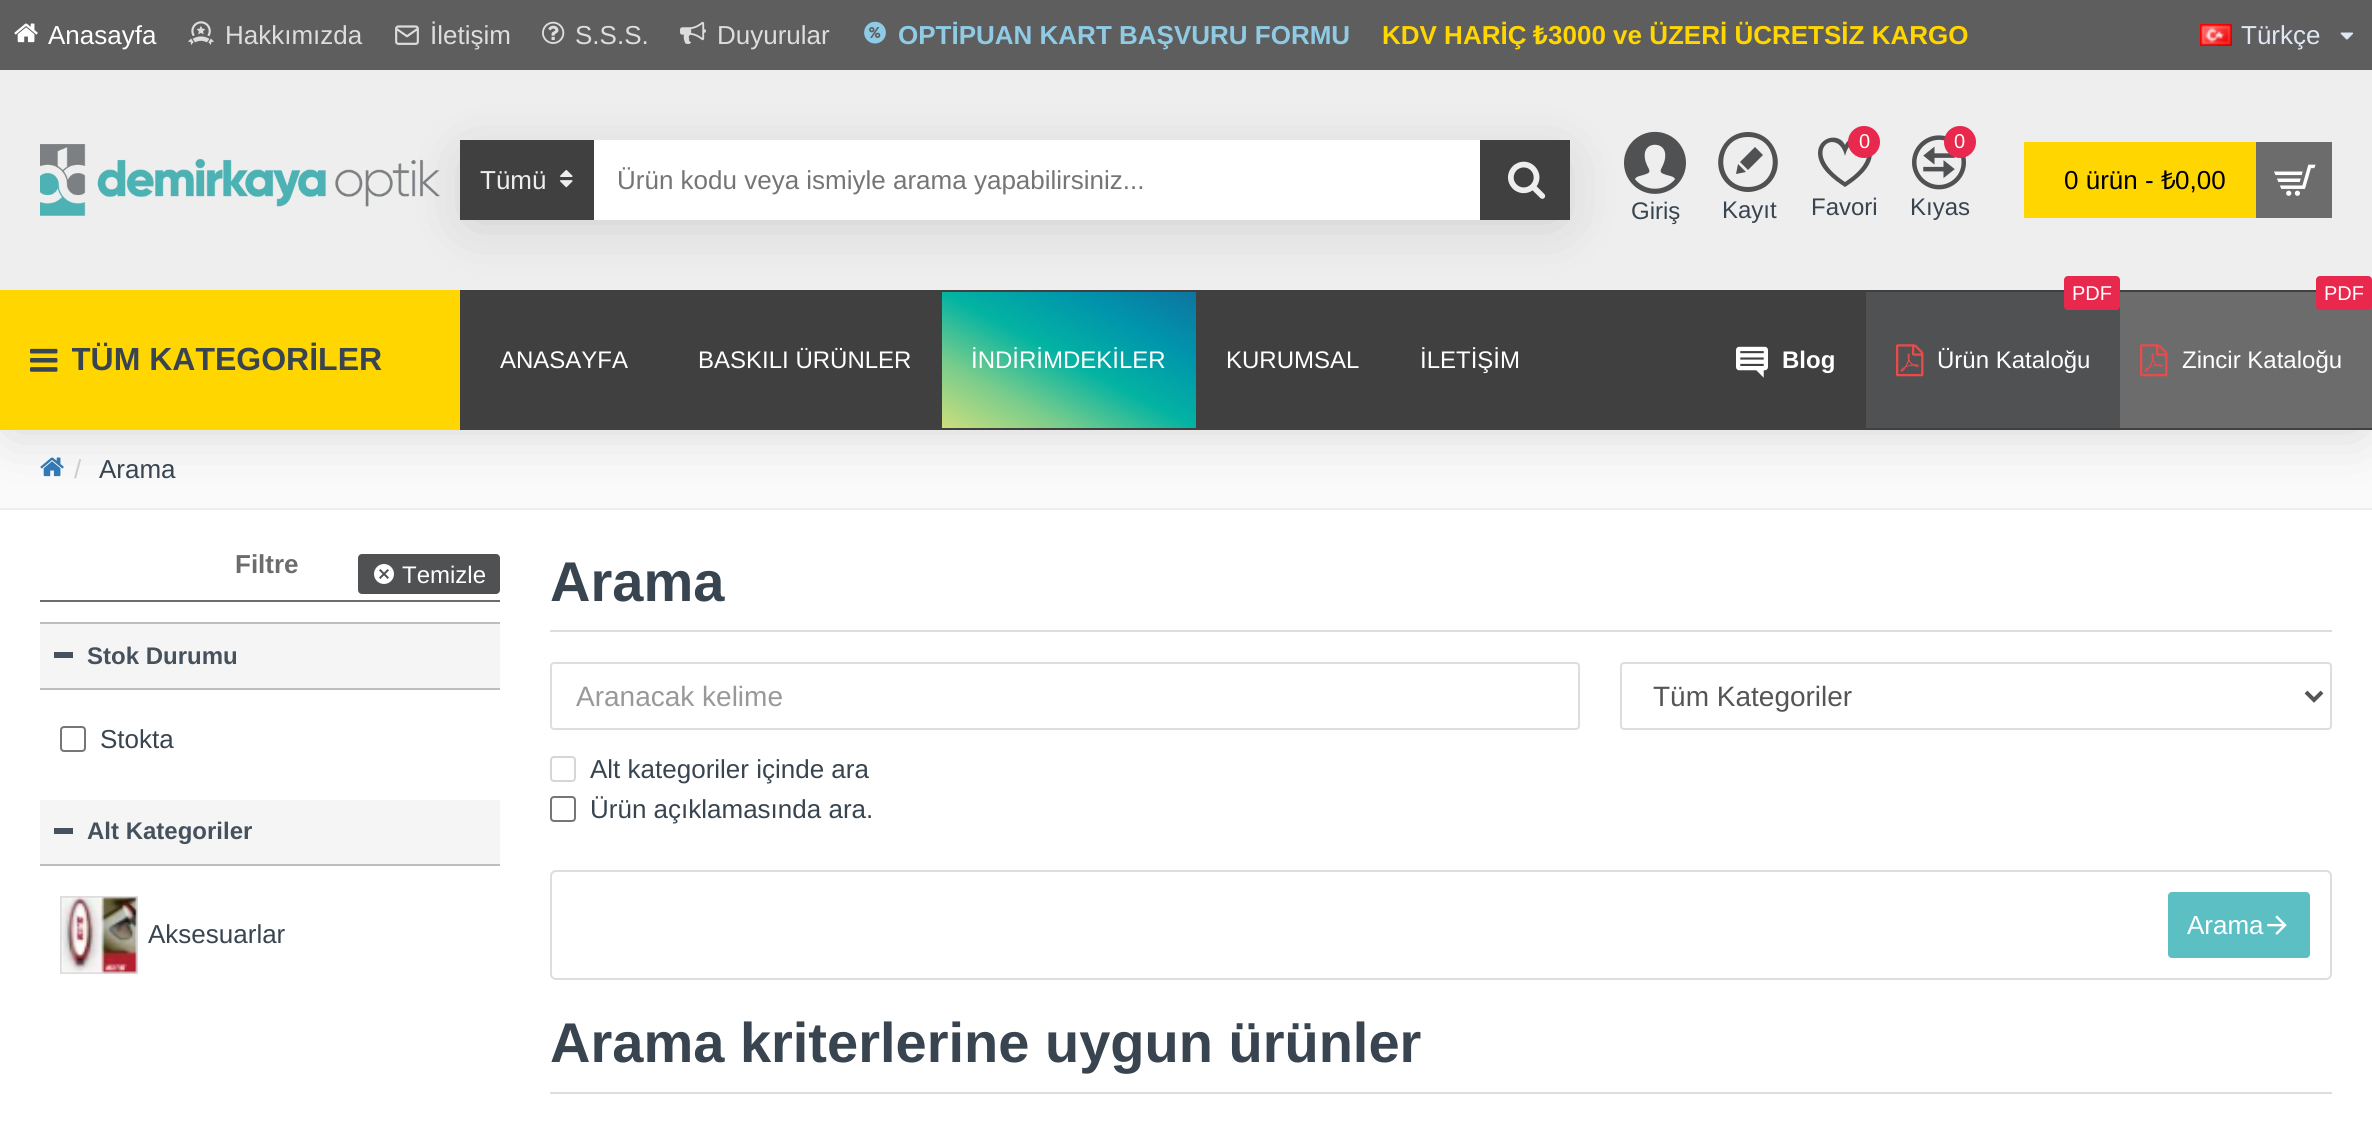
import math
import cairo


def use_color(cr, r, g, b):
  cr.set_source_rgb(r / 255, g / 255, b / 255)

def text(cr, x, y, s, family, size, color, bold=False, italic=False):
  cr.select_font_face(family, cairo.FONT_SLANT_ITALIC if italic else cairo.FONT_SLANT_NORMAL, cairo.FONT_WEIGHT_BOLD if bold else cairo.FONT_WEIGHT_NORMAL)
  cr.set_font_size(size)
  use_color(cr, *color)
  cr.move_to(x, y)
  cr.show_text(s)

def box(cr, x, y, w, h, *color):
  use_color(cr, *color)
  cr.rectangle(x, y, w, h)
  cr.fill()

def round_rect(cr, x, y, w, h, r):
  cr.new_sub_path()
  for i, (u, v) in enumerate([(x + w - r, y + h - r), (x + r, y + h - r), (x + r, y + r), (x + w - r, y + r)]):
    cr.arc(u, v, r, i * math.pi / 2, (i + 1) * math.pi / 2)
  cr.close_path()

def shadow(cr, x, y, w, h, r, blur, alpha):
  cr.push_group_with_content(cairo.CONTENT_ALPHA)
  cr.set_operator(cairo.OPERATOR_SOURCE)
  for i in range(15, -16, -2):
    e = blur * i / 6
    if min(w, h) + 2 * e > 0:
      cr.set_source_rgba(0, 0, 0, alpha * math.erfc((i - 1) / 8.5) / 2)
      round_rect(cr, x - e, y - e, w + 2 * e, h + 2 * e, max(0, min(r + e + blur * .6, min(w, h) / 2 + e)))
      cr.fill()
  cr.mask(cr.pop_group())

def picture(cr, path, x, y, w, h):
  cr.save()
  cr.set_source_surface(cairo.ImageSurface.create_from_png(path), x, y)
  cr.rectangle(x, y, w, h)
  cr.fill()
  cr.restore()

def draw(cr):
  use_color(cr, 255, 255, 255)
  cr.paint()
  box(cr, 0, 430, 2372, 78, 250, 250, 250)
  box(cr, 0, 508, 2372, 2, 238, 238, 238)
  picture(cr, "img_19.png", 40, 457, 24, 20)
  use_color(cr, 0, 0, 0)
  shadow(cr, 10, 20, 2352, 410, 0, 30, 0.15)
  box(cr, 0, 70, 2372, 220, 238, 238, 238)
  box(cr, 0, 0, 2372, 70, 94, 94, 94)
  picture(cr, "img_01.png", 14, 23, 24, 20)
  picture(cr, "img_02.png", 188, 21, 26, 24)
  picture(cr, "img_03.png", 395, 25, 24, 20)
  picture(cr, "img_04.png", 542, 21, 23, 23)
  picture(cr, "img_05.png", 680, 21, 26, 23)
  picture(cr, "img_06.png", 864, 21, 22, 23)
  picture(cr, "img_07.png", 2200, 24, 32, 22)
  picture(cr, "img_08.png", 2340, 32, 14, 8)
  picture(cr, "img_09.png", 40, 144, 400, 72)
  picture(cr, "img_12.png", 1624, 131, 62, 63)
  box(cr, 460, 290, 1912, 140, 64, 64, 64)
  box(cr, 0, 290, 460, 140, 255, 214, 0)
  gradient = cairo.LinearGradient(1126, 254, 1012, 466)
  gradient.add_color_stop_rgba(0, 0.055, 0.455, 0.631, 1)
  gradient.add_color_stop_rgba(0.25, 0, 0.584, 0.675, 1)
  gradient.add_color_stop_rgba(0.5, 0.012, 0.702, 0.635, 1)
  gradient.add_color_stop_rgba(0.75, 0.471, 0.8, 0.549, 1)
  gradient.add_color_stop_rgba(1, 0.804, 0.871, 0.486, 1)
  cr.set_source(gradient)
  cr.rectangle(942, 292, 254, 136)
  cr.fill()
  use_color(cr, 0, 0, 0)
  shadow(cr, 470, 160, 1090, 60, 0, 30, 0.15)
  box(cr, 460, 140, 134, 80, 64, 64, 64)
  picture(cr, "img_10.png", 560, 169, 13, 19)
  box(cr, 594, 140, 886, 80, 255, 255, 255)
  box(cr, 1480, 140, 90, 80, 64, 64, 64)
  picture(cr, "img_11.png", 1508, 161, 38, 38)
  use_color(cr, 80, 81, 82)
  cr.new_path()
  cr.move_to(1748, 137)
  cr.curve_to(1781, 137, 1781, 187, 1748, 187)
  cr.curve_to(1715, 187, 1715, 137, 1748, 137)
  cr.close_path()
  cr.move_to(1748, 132)
  cr.curve_to(1719, 132, 1707, 170, 1731, 187)
  cr.curve_to(1736, 190, 1742, 192, 1748, 192)
  cr.curve_to(1754, 192, 1760, 190, 1765, 187)
  cr.curve_to(1789, 170, 1777, 132, 1748, 132)
  cr.close_path()
  cr.move_to(1738, 164)
  cr.line_to(1746, 172)
  cr.line_to(1736, 174)
  cr.close_path()
  cr.move_to(1763, 155)
  cr.line_to(1748, 170)
  cr.line_to(1740, 162)
  cr.line_to(1755, 147)
  cr.close_path()
  cr.fill()
  cr.new_path()
  cr.move_to(1845, 156)
  cr.curve_to(1852, 125, 1892, 151, 1845, 182)
  cr.curve_to(1798, 151, 1838, 125, 1845, 156)
  cr.close_path()
  cr.move_to(1818, 153)
  cr.curve_to(1818, 168, 1834, 180, 1845, 187)
  cr.curve_to(1856, 180, 1872, 168, 1872, 153)
  cr.curve_to(1872, 150, 1871, 147, 1869, 144)
  cr.curve_to(1864, 136, 1849, 135, 1845, 145)
  cr.curve_to(1839, 132, 1818, 137, 1818, 153)
  cr.close_path()
  cr.fill()
  use_color(cr, 232, 40, 77)
  cr.arc(1864, 142, 16, 0, 2 * math.pi)
  cr.fill()
  picture(cr, "img_13.png", 1912, 135, 54, 55)
  cr.arc(1960, 142, 16, 0, 2 * math.pi)
  cr.fill()
  box(cr, 2024, 142, 232, 76, 255, 214, 0)
  box(cr, 2256, 142, 76, 76, 108, 108, 108)
  picture(cr, "img_14.png", 2274, 164, 42, 32)
  picture(cr, "img_15.png", 1736, 346, 32, 32)
  box(cr, 1866, 292, 254, 136, 80, 81, 82)
  use_color(cr, 232, 40, 77)
  round_rect(cr, 2064, 276, 56, 34, 4)
  cr.fill()
  picture(cr, "img_16.png", 1896, 344, 28, 33)
  box(cr, 2120, 292, 252, 136, 108, 108, 108)
  use_color(cr, 232, 40, 77)
  round_rect(cr, 2316, 276, 56, 34, 4)
  cr.fill()
  picture(cr, "img_17.png", 2140, 344, 28, 33)
  picture(cr, "img_18.png", 30, 348, 28, 24)
  box(cr, 40, 600, 460, 2, 108, 108, 108)
  use_color(cr, 80, 81, 82)
  round_rect(cr, 358, 554, 142, 40, 4)
  cr.fill()
  picture(cr, "img_20.png", 374, 564, 20, 20)
  box(cr, 40, 624, 460, 64, 245, 245, 245)
  box(cr, 40, 622, 460, 2, 189, 189, 189)
  box(cr, 40, 688, 460, 2, 189, 189, 189)
  box(cr, 54, 652, 19, 6, 69, 82, 94)
  round_rect(cr, 61, 727, 24, 24, 3)
  use_color(cr, 118, 118, 118)
  cr.stroke()
  box(cr, 40, 800, 460, 64, 245, 245, 245)
  box(cr, 40, 864, 460, 2, 189, 189, 189)
  box(cr, 54, 828, 19, 6, 69, 82, 94)
  cr.rectangle(61, 897, 76, 76)
  use_color(cr, 221, 221, 221)
  cr.stroke()
  picture(cr, "img_21.png", 61, 897, 77, 77)
  box(cr, 550, 630, 1782, 2, 221, 221, 221)
  round_rect(cr, 551, 663, 1028, 66, 3)
  cr.stroke()
  round_rect(cr, 1621, 663, 710, 66, 3)
  cr.stroke()
  cr.new_path()
  cr.move_to(2306, 692)
  cr.line_to(2314, 700)
  cr.line_to(2322, 692)
  use_color(cr, 85, 85, 85)
  cr.set_line_width(4)
  cr.stroke()
  round_rect(cr, 551, 757, 24, 24, 3)
  use_color(cr, 214, 214, 214)
  cr.set_line_width(2)
  cr.stroke()
  round_rect(cr, 551, 797, 24, 24, 3)
  use_color(cr, 118, 118, 118)
  cr.stroke()
  round_rect(cr, 551, 871, 1780, 108, 5)
  use_color(cr, 221, 221, 221)
  cr.stroke()
  use_color(cr, 92, 191, 196)
  round_rect(cr, 2168, 892, 142, 66, 4)
  cr.fill()
  picture(cr, "img_22.png", 2267, 915, 20, 20)
  box(cr, 550, 1092, 1782, 2, 221, 221, 221)
  text(cr, 48, 44, "Anasayfa", "Liberation Sans", 26, (255, 255, 255))
  text(cr, 225, 44, "Hakkımızda", "Liberation Sans", 26, (221, 221, 221))
  text(cr, 430, 44, "İletişim", "Liberation Sans", 26, (221, 221, 221))
  text(cr, 575, 44, "S.S.S.", "Liberation Sans", 26, (221, 221, 221))
  text(cr, 717, 44, "Duyurular", "Liberation Sans", 26, (221, 221, 221))
  text(cr, 898, 44, "OPTİPUAN KART BAŞVURU FORMU", "Liberation Sans", 26, (144, 203, 230), bold=True)
  text(cr, 1382, 44, "KDV HARİÇ", "Liberation Sans", 26, (255, 214, 0), bold=True)
  text(cr, 1533, 44, "₺", "Noto Sans", 26, (255, 214, 0), bold=True)
  text(cr, 1548, 44, "3000 ve ÜZERİ ÜCRETSİZ KARGO", "Liberation Sans", 26, (255, 214, 0), bold=True)
  text(cr, 2241, 44, "Türkçe", "Liberation Sans", 26, (223, 231, 247))
  text(cr, 480, 189, "Tümü", "Liberation Sans", 26, (238, 238, 238))
  text(cr, 617, 189, "Ürün kodu veya ismiyle arama yapabilirsiniz...", "Liberation Sans", 26, (117, 117, 117))
  text(cr, 1631, 219, "Giriş", "Liberation Sans", 24, (56, 68, 79))
  text(cr, 1722, 218, "Kayıt", "Liberation Sans", 24, (56, 68, 79))
  text(cr, 1859, 148, "0", "Liberation Sans", 20, (255, 255, 255))
  text(cr, 1811, 215, "Favori", "Liberation Sans", 24, (56, 68, 79))
  text(cr, 1954, 148, "0", "Liberation Sans", 20, (255, 255, 255))
  text(cr, 1910, 215, "Kıyas", "Liberation Sans", 24, (56, 68, 79))
  text(cr, 2064, 189, "0 ürün -", "Liberation Sans", 26, (0, 0, 0))
  text(cr, 2161, 189, "₺", "Noto Sans", 26, (0, 0, 0))
  text(cr, 2175, 189, "0,00", "Liberation Sans", 26, (0, 0, 0))
  text(cr, 1782, 368, "Blog", "Liberation Sans", 24, (255, 255, 255), bold=True)
  text(cr, 2072, 300, "PDF", "Liberation Sans", 20, (255, 255, 255))
  text(cr, 1937, 368, "Ürün Kataloğu", "Liberation Sans", 24, (255, 255, 255))
  text(cr, 2324, 300, "PDF", "Liberation Sans", 20, (255, 255, 255))
  text(cr, 2182, 368, "Zincir Kataloğu", "Liberation Sans", 24, (255, 255, 255))
  cr.save()
  cr.rectangle(72, 336, 358, 48)
  cr.clip()
  text(cr, 71, 370, "TÜM KATEGORİLER", "Liberation Sans", 32, (56, 68, 79), bold=True)
  cr.restore()
  text(cr, 500, 368, "ANASAYFA", "Liberation Sans", 24, (255, 255, 255))
  text(cr, 698, 368, "BASKILI ÜRÜNLER", "Liberation Sans", 24, (255, 255, 255))
  text(cr, 971, 368, "İNDİRİMDEKİLER", "Liberation Sans", 24, (255, 255, 255))
  text(cr, 1226, 368, "KURUMSAL", "Liberation Sans", 24, (255, 255, 255))
  text(cr, 1420, 368, "İLETİŞİM", "Liberation Sans", 24, (255, 255, 255))
  text(cr, 74, 478, "/", "Liberation Sans", 26, (204, 204, 204))
  text(cr, 99, 478, "Arama", "Liberation Sans", 26, (56, 68, 79))
  text(cr, 235, 573, "Filtre", "Liberation Sans", 26, (108, 108, 108), bold=True)
  text(cr, 402, 583, "Temizle", "Liberation Sans", 24, (255, 255, 255))
  text(cr, 87, 664, "Stok Durumu", "Liberation Sans", 24, (69, 82, 94), bold=True)
  text(cr, 100, 748, "Stokta", "Liberation Sans", 26, (56, 68, 79))
  text(cr, 87, 839, "Alt Kategoriler", "Liberation Sans", 24, (69, 82, 94), bold=True)
  text(cr, 148, 943, "Aksesuarlar", "Liberation Sans", 26, (56, 68, 79))
  text(cr, 550, 601, "Arama", "Liberation Sans", 56, (56, 68, 79), bold=True)
  text(cr, 576, 706, "Aranacak kelime", "Liberation Sans", 28, (153, 153, 153))
  text(cr, 1653, 706, "Tüm Kategoriler", "Liberation Sans", 28, (85, 85, 85))
  text(cr, 590, 778, "Alt kategoriler içinde ara", "Liberation Sans", 26, (56, 68, 79))
  text(cr, 590, 818, "Ürün açıklamasında ara.", "Liberation Sans", 26, (56, 68, 79))
  text(cr, 2187, 934, "Arama", "Liberation Sans", 26, (255, 255, 255))
  text(cr, 550, 1062, "Arama kriterlerine uygun ürünler", "Liberation Sans", 56, (56, 68, 79), bold=True)


surface = cairo.ImageSurface(cairo.FORMAT_RGB24, 2372, 1140)
cr = cairo.Context(surface)
options = cairo.FontOptions()
options.set_hint_metrics(cairo.HINT_METRICS_OFF)
options.set_hint_style(cairo.HINT_STYLE_NONE)
cr.set_font_options(options)
cr.set_miter_limit(4)
draw(cr)
surface.write_to_png("out.png")
